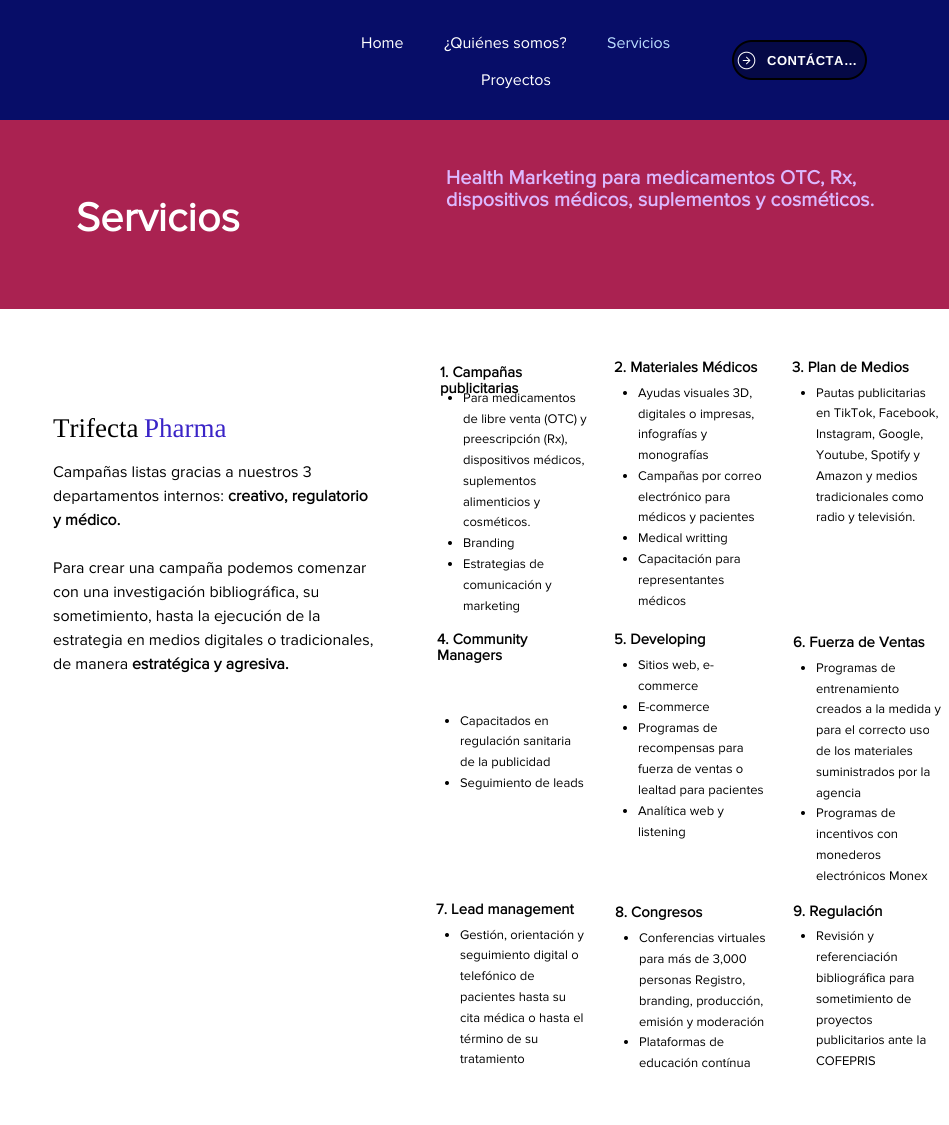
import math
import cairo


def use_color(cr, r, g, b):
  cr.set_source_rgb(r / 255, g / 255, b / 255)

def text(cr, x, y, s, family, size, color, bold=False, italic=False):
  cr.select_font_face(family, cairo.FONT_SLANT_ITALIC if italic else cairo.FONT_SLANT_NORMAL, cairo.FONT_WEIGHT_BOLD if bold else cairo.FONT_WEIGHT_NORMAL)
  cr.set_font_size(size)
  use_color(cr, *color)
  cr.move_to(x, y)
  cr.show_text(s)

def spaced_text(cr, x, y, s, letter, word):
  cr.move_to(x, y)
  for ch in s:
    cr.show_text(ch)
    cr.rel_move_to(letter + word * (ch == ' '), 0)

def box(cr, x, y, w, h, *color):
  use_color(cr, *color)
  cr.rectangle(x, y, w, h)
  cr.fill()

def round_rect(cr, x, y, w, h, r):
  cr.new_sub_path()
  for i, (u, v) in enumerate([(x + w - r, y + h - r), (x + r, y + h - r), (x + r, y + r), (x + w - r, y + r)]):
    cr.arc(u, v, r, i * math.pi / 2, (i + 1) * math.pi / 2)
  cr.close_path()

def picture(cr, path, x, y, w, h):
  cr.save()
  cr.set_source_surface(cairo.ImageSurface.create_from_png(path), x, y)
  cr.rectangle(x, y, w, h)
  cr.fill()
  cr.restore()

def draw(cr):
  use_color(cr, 255, 255, 255)
  cr.paint()
  box(cr, 0, 0, 949, 120, 7, 13, 104)
  use_color(cr, 5, 9, 70)
  round_rect(cr, 733, 41, 133, 38, 19)
  cr.fill_preserve()
  use_color(cr, 0, 0, 0)
  cr.stroke()
  picture(cr, "img_01.png", 737, 51, 19, 19)
  box(cr, 0, 120, 949, 189, 170, 34, 81)
  use_color(cr, 0, 0, 0)
  cr.arc(450, 398, 2, 0, 2 * math.pi)
  cr.fill()
  cr.arc(450, 543, 2, 0, 2 * math.pi)
  cr.fill()
  cr.arc(450, 564, 2, 0, 2 * math.pi)
  cr.fill()
  cr.arc(625, 393, 2, 0, 2 * math.pi)
  cr.fill()
  cr.arc(625, 476, 2, 0, 2 * math.pi)
  cr.fill()
  cr.arc(625, 538, 2, 0, 2 * math.pi)
  cr.fill()
  cr.arc(625, 559, 2, 0, 2 * math.pi)
  cr.fill()
  cr.arc(803, 393, 2, 0, 2 * math.pi)
  cr.fill()
  cr.arc(447, 721, 2, 0, 2 * math.pi)
  cr.fill()
  cr.arc(447, 783, 2, 0, 2 * math.pi)
  cr.fill()
  cr.arc(625, 665, 2, 0, 2 * math.pi)
  cr.fill()
  cr.arc(625, 707, 2, 0, 2 * math.pi)
  cr.fill()
  cr.arc(625, 728, 2, 0, 2 * math.pi)
  cr.fill()
  cr.arc(625, 811, 2, 0, 2 * math.pi)
  cr.fill()
  cr.arc(803, 668, 2, 0, 2 * math.pi)
  cr.fill()
  cr.arc(803, 813, 2, 0, 2 * math.pi)
  cr.fill()
  cr.arc(447, 935, 2, 0, 2 * math.pi)
  cr.fill()
  cr.arc(626, 938, 2, 0, 2 * math.pi)
  cr.fill()
  cr.arc(626, 1042, 2, 0, 2 * math.pi)
  cr.fill()
  cr.arc(803, 936, 2, 0, 2 * math.pi)
  cr.fill()
  text(cr, 361, 48, "Home", "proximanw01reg", 16, (255, 255, 255))
  text(cr, 444, 48, "¿Quiénes somos?", "proximanw01reg", 16, (255, 255, 255))
  text(cr, 607, 48, "Servicios", "proximanw01reg", 16, (187, 222, 255))
  text(cr, 481, 85, "Proyectos", "proximanw01reg", 16, (255, 255, 255))
  cr.select_font_face("Liberation Sans", cairo.FONT_SLANT_NORMAL, cairo.FONT_WEIGHT_BOLD)
  cr.set_font_size(13)
  spaced_text(cr, 767, 65, "CONTÁCTA…", 0.5, 0)
  text(cr, 446, 184, "Health Marketing para medicamentos OTC, Rx,", "proximanw01reg", 20, (220, 185, 255), bold=True)
  text(cr, 446, 206, "dispositivos médicos, suplementos y cosméticos.", "proximanw01reg", 20, (220, 185, 255), bold=True)
  text(cr, 76, 231, "Servicios", "proximanw01reg", 41.5, (255, 255, 255), bold=True)
  text(cr, 53, 437, "Trifecta", "Liberation Serif", 27, (0, 0, 0))
  text(cr, 144, 437, "Pharma", "Liberation Serif", 27, (58, 36, 199))
  text(cr, 53, 477, "Campañas listas gracias a nuestros 3", "proximanw01reg", 16, (0, 0, 0))
  text(cr, 53, 501, "departamentos internos:", "proximanw01reg", 16, (0, 0, 0))
  text(cr, 228, 501, "creativo, regulatorio", "proximanw01reg", 16, (0, 0, 0), bold=True)
  text(cr, 53, 525, "y médico.", "proximanw01reg", 16, (0, 0, 0), bold=True)
  text(cr, 53, 573, "Para crear una campaña podemos comenzar", "proximanw01reg", 16, (0, 0, 0))
  text(cr, 53, 597, "con una investigación bibliográfica, su", "proximanw01reg", 16, (0, 0, 0))
  text(cr, 53, 621, "sometimiento, hasta la ejecución de la", "proximanw01reg", 16, (0, 0, 0))
  text(cr, 53, 645, "estrategia en medios digitales o tradicionales,", "proximanw01reg", 16, (0, 0, 0))
  text(cr, 53, 669, "de manera", "proximanw01reg", 16, (0, 0, 0))
  text(cr, 132, 669, "estratégica y agresiva.", "proximanw01reg", 16, (0, 0, 0), bold=True)
  text(cr, 440, 377, "1. Campañas", "proximanw01reg", 15, (0, 0, 0), bold=True)
  text(cr, 440, 393, "publicitarias", "proximanw01reg", 15, (0, 0, 0), bold=True)
  text(cr, 463, 402, "Para medicamentos", "proximanw01reg", 13, (0, 0, 0))
  text(cr, 463, 423, "de libre venta (OTC) y", "proximanw01reg", 13, (0, 0, 0))
  text(cr, 463, 443, "preescripción (Rx),", "proximanw01reg", 13, (0, 0, 0))
  text(cr, 463, 464, "dispositivos médicos,", "proximanw01reg", 13, (0, 0, 0))
  text(cr, 463, 485, "suplementos", "proximanw01reg", 13, (0, 0, 0))
  text(cr, 463, 506, "alimenticios y", "proximanw01reg", 13, (0, 0, 0))
  text(cr, 463, 526, "cosméticos.", "proximanw01reg", 13, (0, 0, 0))
  text(cr, 463, 547, "Branding", "proximanw01reg", 13, (0, 0, 0))
  text(cr, 463, 568, "Estrategias de", "proximanw01reg", 13, (0, 0, 0))
  text(cr, 463, 589, "comunicación y", "proximanw01reg", 13, (0, 0, 0))
  text(cr, 463, 610, "marketing", "proximanw01reg", 13, (0, 0, 0))
  text(cr, 614, 372, "2. Materiales Médicos", "proximanw01reg", 15, (0, 0, 0), bold=True)
  text(cr, 638, 397, "Ayudas visuales 3D,", "proximanw01reg", 13, (0, 0, 0))
  text(cr, 638, 418, "digitales o impresas,", "proximanw01reg", 13, (0, 0, 0))
  text(cr, 638, 438, "infografías y", "proximanw01reg", 13, (0, 0, 0))
  text(cr, 638, 459, "monografías", "proximanw01reg", 13, (0, 0, 0))
  text(cr, 638, 480, "Campañas por correo", "proximanw01reg", 13, (0, 0, 0))
  text(cr, 638, 501, "electrónico para", "proximanw01reg", 13, (0, 0, 0))
  text(cr, 638, 521, "médicos y pacientes", "proximanw01reg", 13, (0, 0, 0))
  text(cr, 638, 542, "Medical writting", "proximanw01reg", 13, (0, 0, 0))
  text(cr, 638, 563, "Capacitación para", "proximanw01reg", 13, (0, 0, 0))
  text(cr, 638, 584, "representantes", "proximanw01reg", 13, (0, 0, 0))
  text(cr, 638, 605, "médicos", "proximanw01reg", 13, (0, 0, 0))
  text(cr, 792, 372, "3. Plan de Medios", "proximanw01reg", 15, (0, 0, 0), bold=True)
  text(cr, 816, 397, "Pautas publicitarias", "proximanw01reg", 13, (0, 0, 0))
  text(cr, 816, 417, "en TikTok, Facebook,", "proximanw01reg", 13, (0, 0, 0))
  text(cr, 816, 438, "Instagram, Google,", "proximanw01reg", 13, (0, 0, 0))
  text(cr, 816, 459, "Youtube, Spotify y", "proximanw01reg", 13, (0, 0, 0))
  text(cr, 816, 480, "Amazon y medios", "proximanw01reg", 13, (0, 0, 0))
  text(cr, 816, 501, "tradicionales como", "proximanw01reg", 13, (0, 0, 0))
  text(cr, 816, 521, "radio y televisión.", "proximanw01reg", 13, (0, 0, 0))
  text(cr, 437, 644, "4. Community", "proximanw01reg", 15, (0, 0, 0), bold=True)
  text(cr, 437, 660, "Managers", "proximanw01reg", 15, (0, 0, 0), bold=True)
  text(cr, 460, 725, "Capacitados en", "proximanw01reg", 13, (0, 0, 0))
  text(cr, 460, 745, "regulación sanitaria", "proximanw01reg", 13, (0, 0, 0))
  text(cr, 460, 766, "de la publicidad", "proximanw01reg", 13, (0, 0, 0))
  text(cr, 460, 787, "Seguimiento de leads", "proximanw01reg", 13, (0, 0, 0))
  text(cr, 614, 644, "5. Developing", "proximanw01reg", 15, (0, 0, 0), bold=True)
  text(cr, 638, 669, "Sitios web, e-", "proximanw01reg", 13, (0, 0, 0))
  text(cr, 638, 690, "commerce", "proximanw01reg", 13, (0, 0, 0))
  text(cr, 638, 711, "E-commerce", "proximanw01reg", 13, (0, 0, 0))
  text(cr, 638, 732, "Programas de", "proximanw01reg", 13, (0, 0, 0))
  text(cr, 638, 752, "recompensas para", "proximanw01reg", 13, (0, 0, 0))
  text(cr, 638, 773, "fuerza de ventas o", "proximanw01reg", 13, (0, 0, 0))
  text(cr, 638, 794, "lealtad para pacientes", "proximanw01reg", 13, (0, 0, 0))
  text(cr, 638, 815, "Analítica web y", "proximanw01reg", 13, (0, 0, 0))
  text(cr, 638, 836, "listening", "proximanw01reg", 13, (0, 0, 0))
  text(cr, 793, 647, "6. Fuerza de Ventas", "proximanw01reg", 15, (0, 0, 0), bold=True)
  text(cr, 816, 672, "Programas de", "proximanw01reg", 13, (0, 0, 0))
  text(cr, 816, 693, "entrenamiento", "proximanw01reg", 13, (0, 0, 0))
  text(cr, 816, 713, "creados a la medida y", "proximanw01reg", 13, (0, 0, 0))
  text(cr, 816, 734, "para el correcto uso", "proximanw01reg", 13, (0, 0, 0))
  text(cr, 816, 755, "de los materiales", "proximanw01reg", 13, (0, 0, 0))
  text(cr, 816, 776, "suministrados por la", "proximanw01reg", 13, (0, 0, 0))
  text(cr, 816, 797, "agencia", "proximanw01reg", 13, (0, 0, 0))
  text(cr, 816, 817, "Programas de", "proximanw01reg", 13, (0, 0, 0))
  text(cr, 816, 838, "incentivos con", "proximanw01reg", 13, (0, 0, 0))
  text(cr, 816, 859, "monederos", "proximanw01reg", 13, (0, 0, 0))
  text(cr, 816, 880, "electrónicos Monex", "proximanw01reg", 13, (0, 0, 0))
  text(cr, 436, 914, "7. Lead management", "proximanw01reg", 15, (0, 0, 0), bold=True)
  text(cr, 460, 939, "Gestión, orientación y", "proximanw01reg", 13, (0, 0, 0))
  text(cr, 460, 959, "seguimiento digital o", "proximanw01reg", 13, (0, 0, 0))
  text(cr, 460, 980, "telefónico de", "proximanw01reg", 13, (0, 0, 0))
  text(cr, 460, 1001, "pacientes hasta su", "proximanw01reg", 13, (0, 0, 0))
  text(cr, 460, 1022, "cita médica o hasta el", "proximanw01reg", 13, (0, 0, 0))
  text(cr, 460, 1043, "término de su", "proximanw01reg", 13, (0, 0, 0))
  text(cr, 460, 1063, "tratamiento", "proximanw01reg", 13, (0, 0, 0))
  text(cr, 615, 917, "8. Congresos", "proximanw01reg", 15, (0, 0, 0), bold=True)
  text(cr, 639, 942, "Conferencias virtuales", "proximanw01reg", 13, (0, 0, 0))
  text(cr, 639, 963, "para más de 3,000", "proximanw01reg", 13, (0, 0, 0))
  text(cr, 639, 984, "personas Registro,", "proximanw01reg", 13, (0, 0, 0))
  text(cr, 639, 1005, "branding, producción,", "proximanw01reg", 13, (0, 0, 0))
  text(cr, 639, 1026, "emisión y moderación", "proximanw01reg", 13, (0, 0, 0))
  text(cr, 639, 1046, "Plataformas de", "proximanw01reg", 13, (0, 0, 0))
  text(cr, 639, 1067, "educación contínua", "proximanw01reg", 13, (0, 0, 0))
  text(cr, 793, 916, "9. Regulación", "proximanw01reg", 15, (0, 0, 0), bold=True)
  text(cr, 816, 940, "Revisión y", "proximanw01reg", 13, (0, 0, 0))
  text(cr, 816, 961, "referenciación", "proximanw01reg", 13, (0, 0, 0))
  text(cr, 816, 982, "bibliográfica para", "proximanw01reg", 13, (0, 0, 0))
  text(cr, 816, 1003, "sometimiento de", "proximanw01reg", 13, (0, 0, 0))
  text(cr, 816, 1024, "proyectos", "proximanw01reg", 13, (0, 0, 0))
  text(cr, 816, 1044, "publicitarios ante la", "proximanw01reg", 13, (0, 0, 0))
  text(cr, 816, 1065, "COFEPRIS", "proximanw01reg", 13, (0, 0, 0))


surface = cairo.ImageSurface(cairo.FORMAT_RGB24, 949, 1125)
cr = cairo.Context(surface)
options = cairo.FontOptions()
options.set_hint_metrics(cairo.HINT_METRICS_OFF)
options.set_hint_style(cairo.HINT_STYLE_NONE)
cr.set_font_options(options)
cr.set_miter_limit(4)
draw(cr)
surface.write_to_png("out.png")
